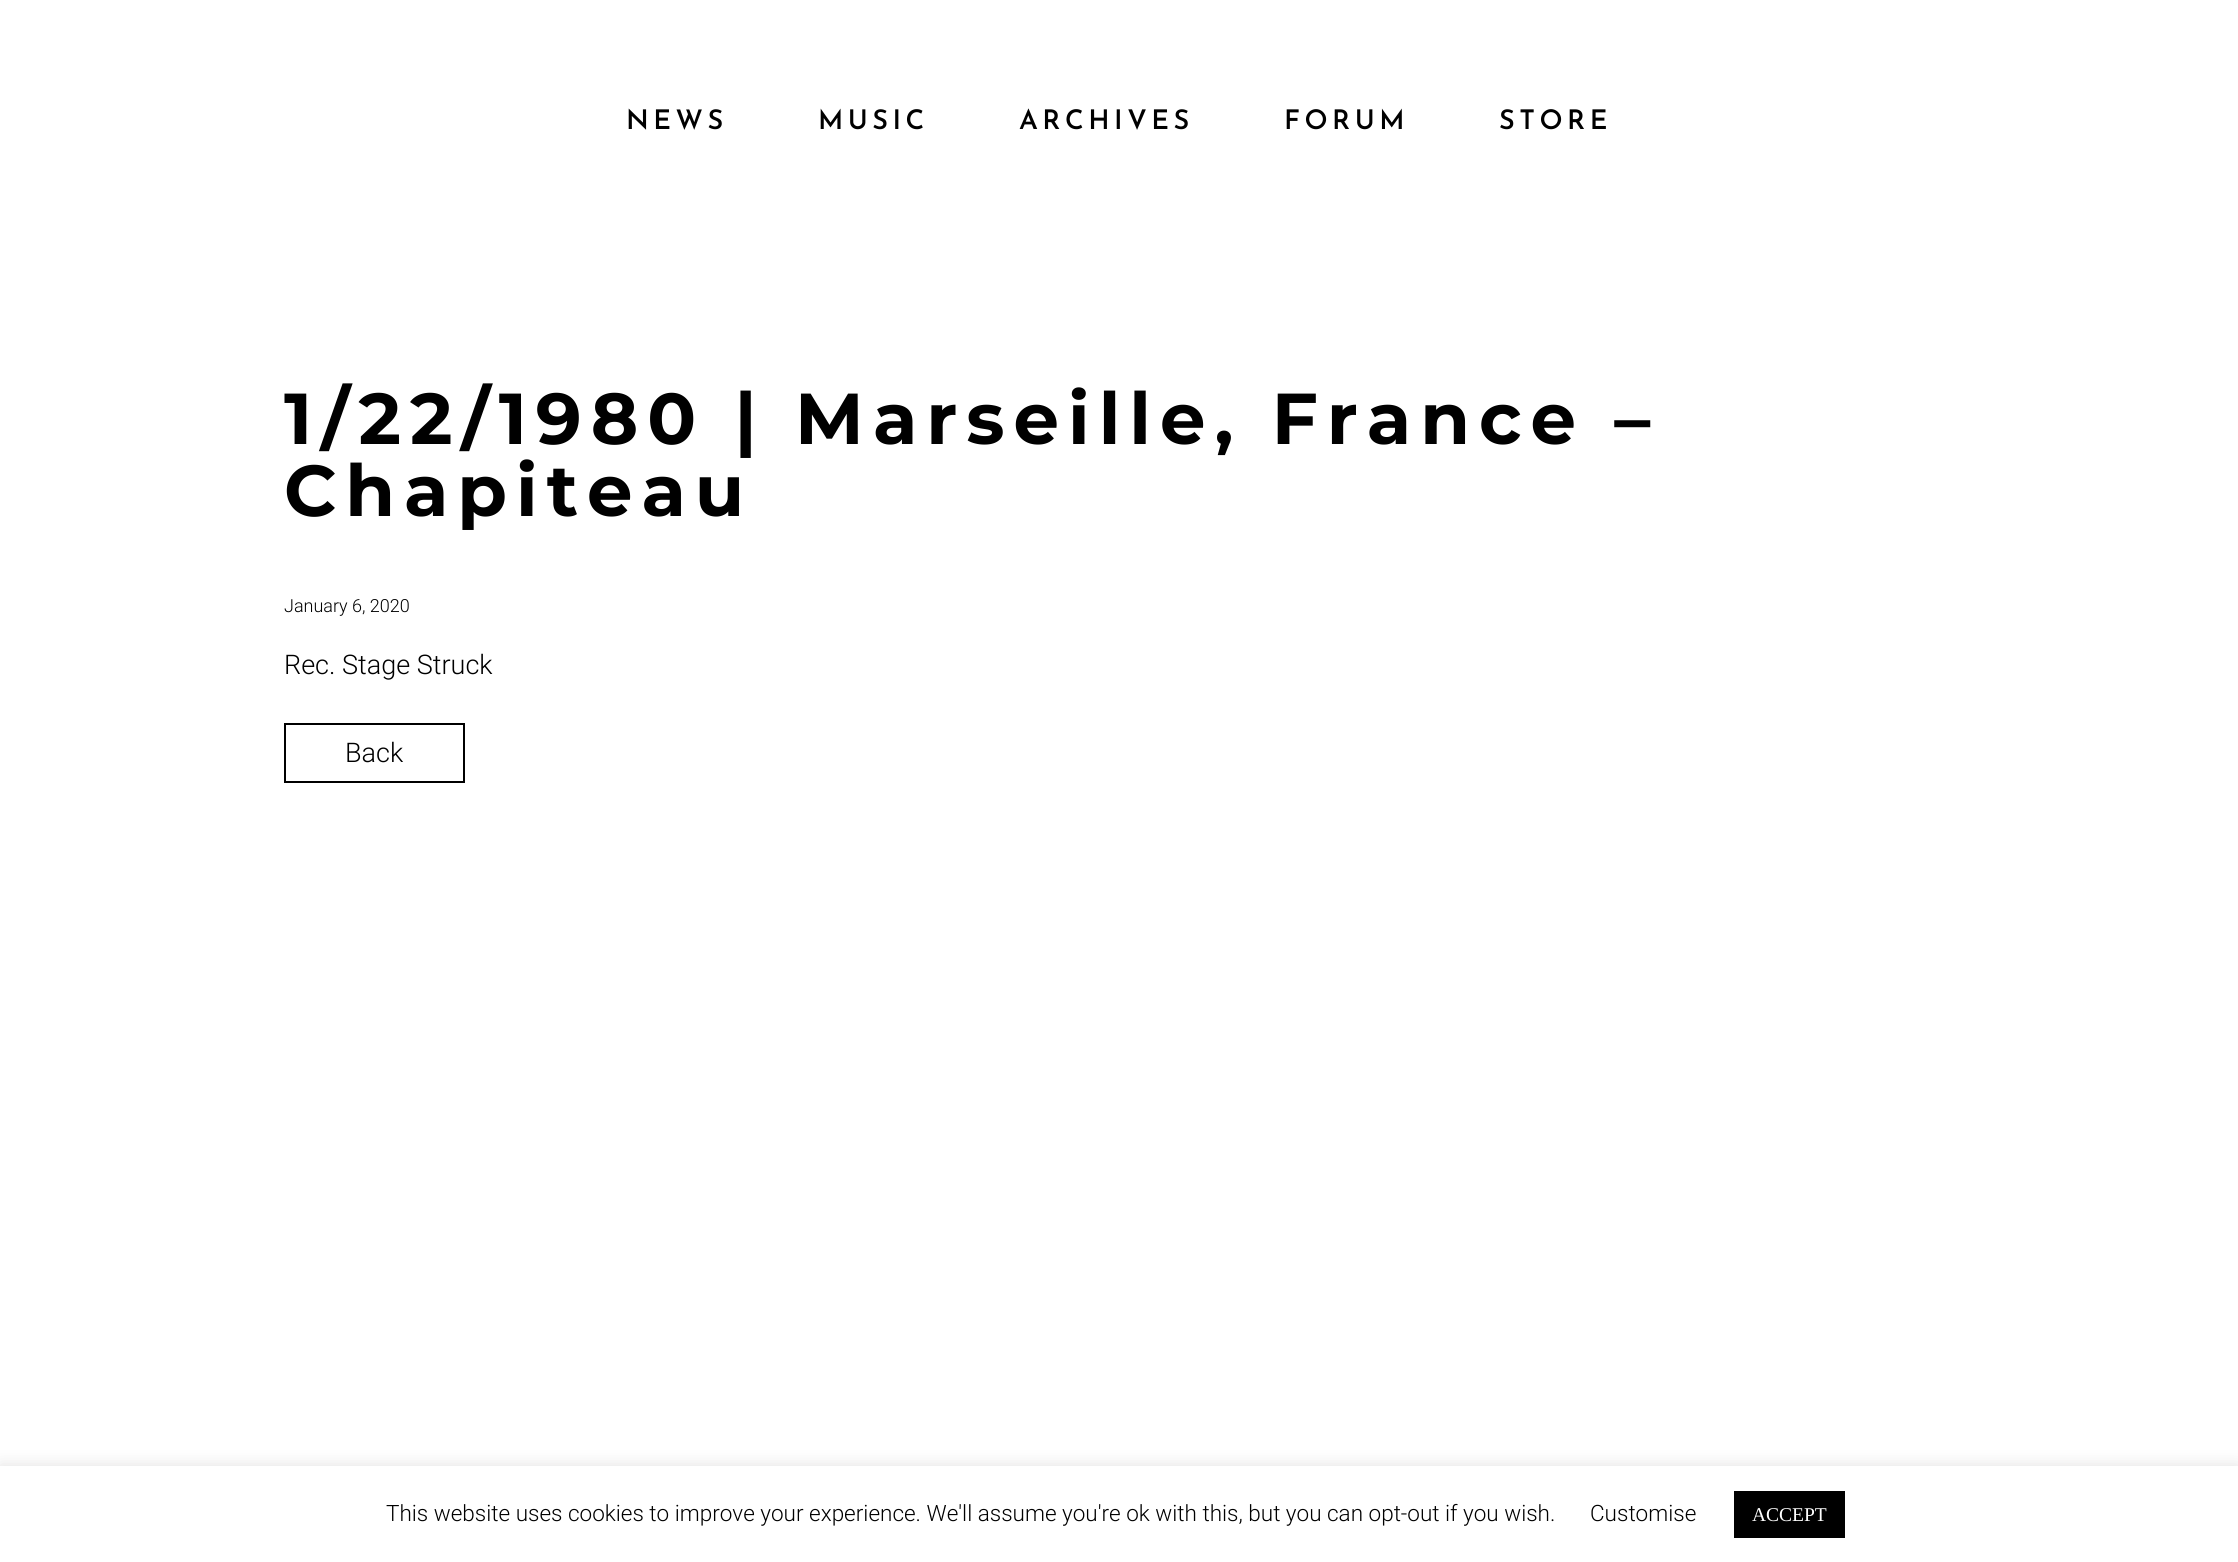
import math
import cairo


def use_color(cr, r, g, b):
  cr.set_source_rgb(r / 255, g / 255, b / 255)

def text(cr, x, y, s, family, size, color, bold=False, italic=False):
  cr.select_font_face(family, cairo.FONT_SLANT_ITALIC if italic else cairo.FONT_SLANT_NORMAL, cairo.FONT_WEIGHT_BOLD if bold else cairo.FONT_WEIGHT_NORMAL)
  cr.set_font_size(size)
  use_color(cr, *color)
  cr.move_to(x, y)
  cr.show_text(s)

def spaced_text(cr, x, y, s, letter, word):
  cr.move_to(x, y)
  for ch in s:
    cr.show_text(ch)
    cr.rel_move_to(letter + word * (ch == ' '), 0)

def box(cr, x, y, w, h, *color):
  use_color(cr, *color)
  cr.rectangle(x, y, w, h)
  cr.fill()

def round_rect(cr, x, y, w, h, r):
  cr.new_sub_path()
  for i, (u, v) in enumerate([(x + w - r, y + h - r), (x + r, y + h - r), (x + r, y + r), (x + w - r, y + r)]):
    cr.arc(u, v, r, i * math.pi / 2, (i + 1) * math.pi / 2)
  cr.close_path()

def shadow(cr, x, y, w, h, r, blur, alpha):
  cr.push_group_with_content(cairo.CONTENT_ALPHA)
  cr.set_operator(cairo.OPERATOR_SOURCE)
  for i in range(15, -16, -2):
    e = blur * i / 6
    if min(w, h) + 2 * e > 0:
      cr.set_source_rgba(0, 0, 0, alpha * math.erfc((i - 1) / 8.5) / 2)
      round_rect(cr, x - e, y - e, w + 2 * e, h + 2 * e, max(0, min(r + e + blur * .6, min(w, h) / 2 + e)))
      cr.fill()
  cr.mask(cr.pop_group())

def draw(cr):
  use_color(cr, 255, 255, 255)
  cr.paint()
  cr.rectangle(285, 724, 179, 58)
  use_color(cr, 0, 0, 0)
  cr.stroke()
  use_color(cr, 172, 171, 171)
  shadow(cr, 0, 1464, 2238, 98, 0, 7.5, 0.3)
  box(cr, 0, 1466, 2238, 96, 255, 255, 255)
  box(cr, 1734, 1491, 111, 47, 0, 0, 0)
  cr.select_font_face("Josefin Sans SemiBold")
  cr.set_font_size(27)
  spaced_text(cr, 626, 129, "NEWS", 4.5, 0)
  spaced_text(cr, 818, 129, "MUSIC", 4.5, 0)
  spaced_text(cr, 1019, 129, "ARCHIVES", 4.5, 0)
  spaced_text(cr, 1284, 129, "FORUM", 4.5, 0)
  spaced_text(cr, 1499, 129, "STORE", 4.5, 0)
  cr.select_font_face("Montserrat", cairo.FONT_SLANT_NORMAL, cairo.FONT_WEIGHT_BOLD)
  cr.set_font_size(72)
  spaced_text(cr, 284, 444, "1/22/1980 | Marseille, France –", 9, 0)
  spaced_text(cr, 284, 516, "Chapiteau", 9, 0)
  text(cr, 284, 612, "January 6, 2020", "Roboto Light", 18, (0, 0, 0))
  text(cr, 284, 674, "Rec. Stage Struck", "Roboto Light", 27, (0, 0, 0))
  text(cr, 345, 762, "Back", "Roboto Light", 27, (0, 0, 0))
  text(cr, 386, 1521, "This website uses cookies to improve your experience. We'll assume you're ok with this, but you can opt-out if you wish.", "Roboto Light", 22.5, (0, 0, 0))
  text(cr, 1590, 1521, "Customise", "Roboto Light", 22.5, (0, 0, 0))
  text(cr, 1752, 1521, "ACCEPT", "Liberation Serif", 19.5, (255, 255, 255))


surface = cairo.ImageSurface(cairo.FORMAT_RGB24, 2238, 1562)
cr = cairo.Context(surface)
options = cairo.FontOptions()
options.set_hint_metrics(cairo.HINT_METRICS_OFF)
options.set_hint_style(cairo.HINT_STYLE_NONE)
cr.set_font_options(options)
cr.set_miter_limit(4)
draw(cr)
surface.write_to_png("out.png")
